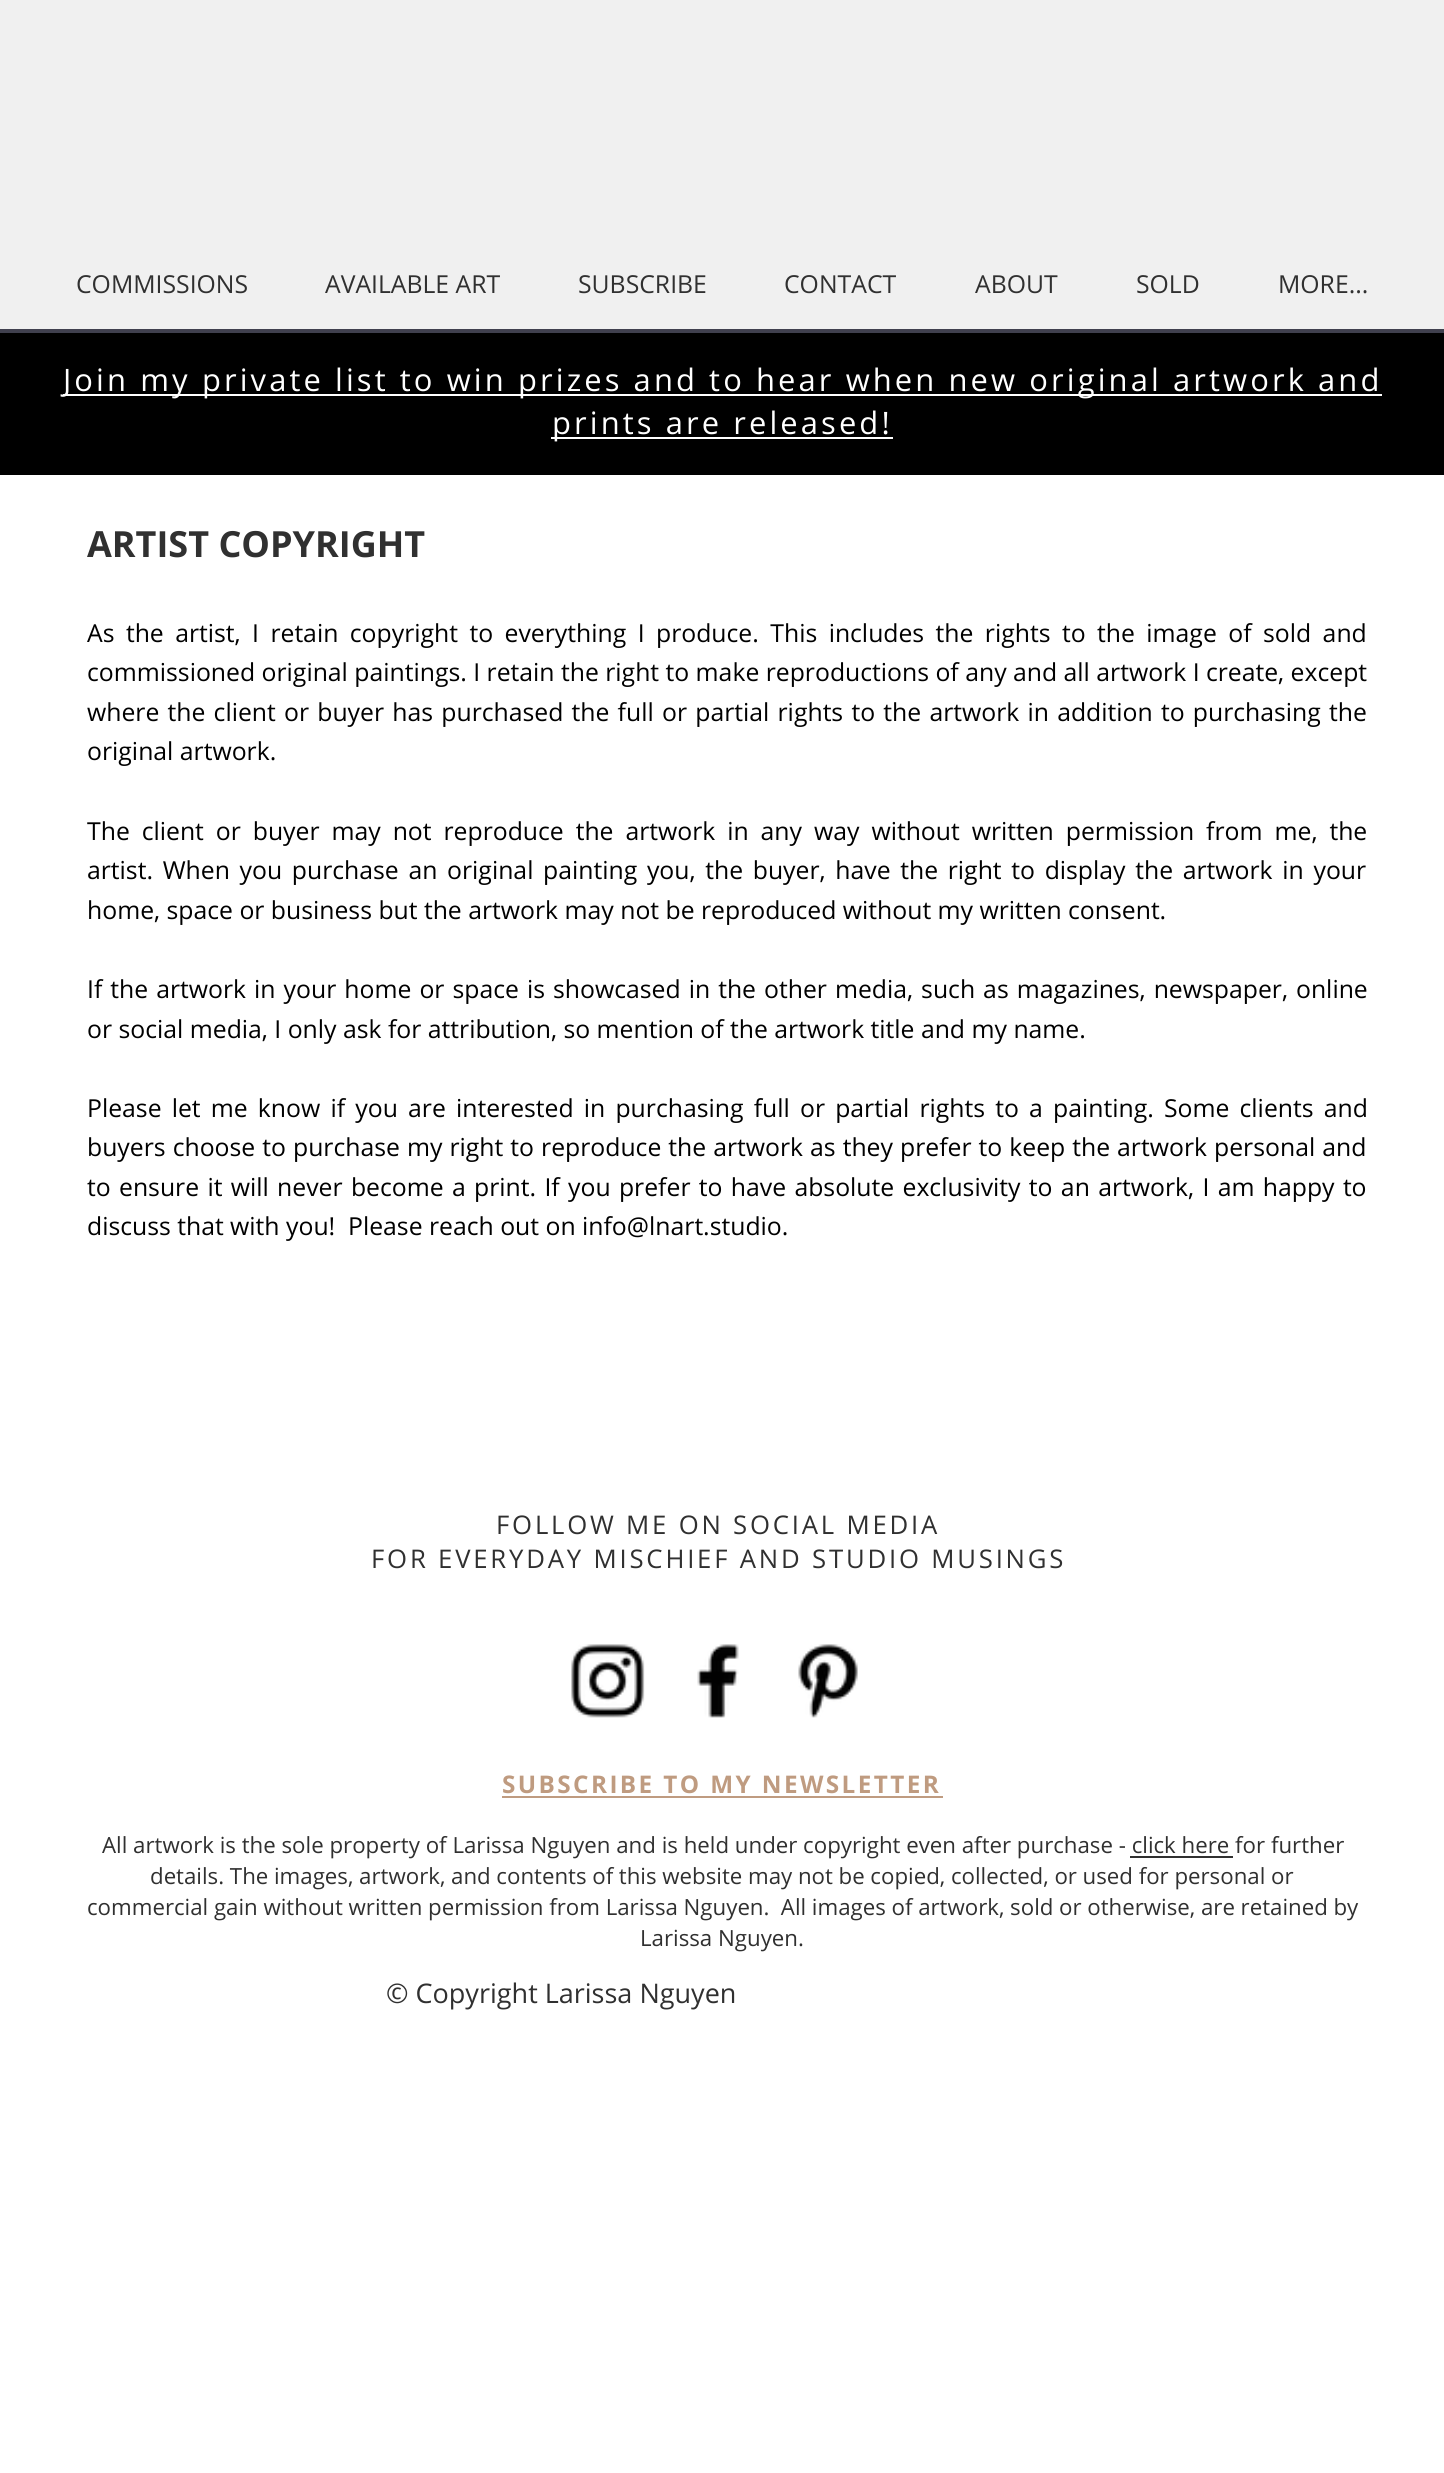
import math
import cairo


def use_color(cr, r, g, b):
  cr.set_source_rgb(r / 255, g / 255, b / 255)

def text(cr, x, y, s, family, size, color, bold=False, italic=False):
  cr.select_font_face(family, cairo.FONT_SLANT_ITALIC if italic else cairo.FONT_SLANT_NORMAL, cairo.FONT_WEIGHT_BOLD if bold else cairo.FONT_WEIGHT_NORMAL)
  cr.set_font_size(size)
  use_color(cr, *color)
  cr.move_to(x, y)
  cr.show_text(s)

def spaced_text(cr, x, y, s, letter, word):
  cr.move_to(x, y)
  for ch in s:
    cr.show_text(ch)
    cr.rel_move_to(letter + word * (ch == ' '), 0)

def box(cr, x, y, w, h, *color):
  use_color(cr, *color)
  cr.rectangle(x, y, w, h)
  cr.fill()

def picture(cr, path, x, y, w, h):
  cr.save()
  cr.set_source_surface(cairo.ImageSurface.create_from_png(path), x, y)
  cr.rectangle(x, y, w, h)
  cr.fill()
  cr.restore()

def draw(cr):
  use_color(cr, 255, 255, 255)
  cr.paint()
  box(cr, 0, 0, 1444, 329, 240, 240, 240)
  box(cr, 0, 329, 1444, 4, 64, 64, 78)
  box(cr, 0, 333, 1444, 142, 0, 0, 0)
  box(cr, 63, 394, 1319, 2, 255, 255, 255)
  box(cr, 551, 437, 342, 2, 255, 255, 255)
  picture(cr, "img_01.png", 571, 1644, 74, 74)
  picture(cr, "img_02.png", 697, 1644, 42, 74)
  picture(cr, "img_03.png", 798, 1644, 60, 74)
  box(cr, 502, 1796, 441, 2, 191, 155, 128)
  box(cr, 1130, 1856, 103, 2, 48, 48, 48)
  text(cr, 76, 293, "COMMISSIONS", "Open Sans", 24.75, (48, 48, 48))
  text(cr, 325, 293, "AVAILABLE ART", "Open Sans", 24.75, (48, 48, 48))
  text(cr, 578, 293, "SUBSCRIBE", "Open Sans", 24.75, (48, 48, 48))
  text(cr, 784, 293, "CONTACT", "Open Sans", 24.75, (48, 48, 48))
  text(cr, 975, 293, "ABOUT", "Open Sans", 24.75, (48, 48, 48))
  text(cr, 1136, 293, "SOLD", "Open Sans", 24.75, (48, 48, 48))
  text(cr, 1278, 293, "MORE...", "Open Sans", 24.75, (48, 48, 48))
  cr.set_font_size(30.9)
  use_color(cr, 255, 255, 255)
  spaced_text(cr, 63, 391, "Join my private list to win prizes and to hear when new original artwork and", 3.1, 0)
  spaced_text(cr, 552, 434, "prints are released!", 3.1, 0)
  text(cr, 87, 557, "ARTIST COPYRIGHT", "Open Sans", 36, (48, 48, 48), bold=True)
  cr.select_font_face("Open Sans")
  cr.set_font_size(24.75)
  use_color(cr, 0, 0, 0)
  spaced_text(cr, 87, 642, "As the artist, I retain copyright to everything I produce. This includes the rights to the image of sold and", 0, 5)
  text(cr, 87, 681, "commissioned original paintings. I retain the right to make reproductions of any and all artwork I create, except", "Open Sans", 24.75, (0, 0, 0))
  spaced_text(cr, 87, 721, "where the client or buyer has purchased the full or partial rights to the artwork in addition to purchasing the", 0, 1.8)
  text(cr, 87, 760, "original artwork.", "Open Sans", 24.75, (0, 0, 0))
  spaced_text(cr, 87, 840, "The client or buyer may not reproduce the artwork in any way without written permission from me, the", 0, 5.5)
  spaced_text(cr, 87, 879, "artist. When you purchase an original painting you, the buyer, have the right to display the artwork in your", 0, 3.25)
  text(cr, 87, 919, "home, space or business but the artwork may not be reproduced without my written consent.", "Open Sans", 24.75, (0, 0, 0))
  spaced_text(cr, 87, 998, "If the artwork in your home or space is showcased in the other media, such as magazines, newspaper, online", 0, 1.6)
  text(cr, 87, 1038, "or social media, I only ask for attribution, so mention of the artwork title and my name.", "Open Sans", 24.75, (0, 0, 0))
  spaced_text(cr, 87, 1117, "Please let me know if you are interested in purchasing full or partial rights to a painting. Some clients and", 0, 3.75)
  spaced_text(cr, 87, 1156, "buyers choose to purchase my right to reproduce the artwork as they prefer to keep the artwork personal and", 0, 0.6)
  spaced_text(cr, 87, 1196, "to ensure it will never become a print. If you prefer to have absolute exclusivity to an artwork, I am happy to", 0, 1.9)
  text(cr, 87, 1235, "discuss that with you!  Please reach out on info@lnart.studio.", "Open Sans", 24.75, (0, 0, 0))
  cr.set_font_size(25.7)
  use_color(cr, 48, 48, 48)
  spaced_text(cr, 496, 1534, "FOLLOW ME ON SOCIAL MEDIA", 2.8, 0)
  spaced_text(cr, 371, 1568, "FOR EVERYDAY MISCHIEF AND STUDIO MUSINGS", 2.8, 0)
  cr.select_font_face("Open Sans", cairo.FONT_SLANT_NORMAL, cairo.FONT_WEIGHT_BOLD)
  cr.set_font_size(24.3)
  use_color(cr, 191, 155, 128)
  spaced_text(cr, 502, 1793, "SUBSCRIBE TO MY NEWSLETTER", 2.4, 0)
  text(cr, 102, 1853, "All artwork is the sole property of Larissa Nguyen and is held under copyright even after purchase - click here for further", "Open Sans", 22.25, (48, 48, 48))
  spaced_text(cr, 150, 1884, "details. The images, artwork, and contents of this website may not be copied, collected, or used for personal or", 0, -0.1)
  spaced_text(cr, 87, 1915, "commercial gain without written permission from Larissa Nguyen.  All images of artwork, sold or otherwise, are retained by", 0, -0.1)
  text(cr, 640, 1946, "Larissa Nguyen.", "Open Sans", 22.25, (48, 48, 48))
  text(cr, 386, 2003, "© Copyright Larissa Nguyen", "Open Sans", 27, (48, 48, 48))


surface = cairo.ImageSurface(cairo.FORMAT_RGB24, 1444, 2473)
cr = cairo.Context(surface)
options = cairo.FontOptions()
options.set_hint_metrics(cairo.HINT_METRICS_OFF)
options.set_hint_style(cairo.HINT_STYLE_NONE)
cr.set_font_options(options)
cr.set_miter_limit(4)
draw(cr)
surface.write_to_png("out.png")
